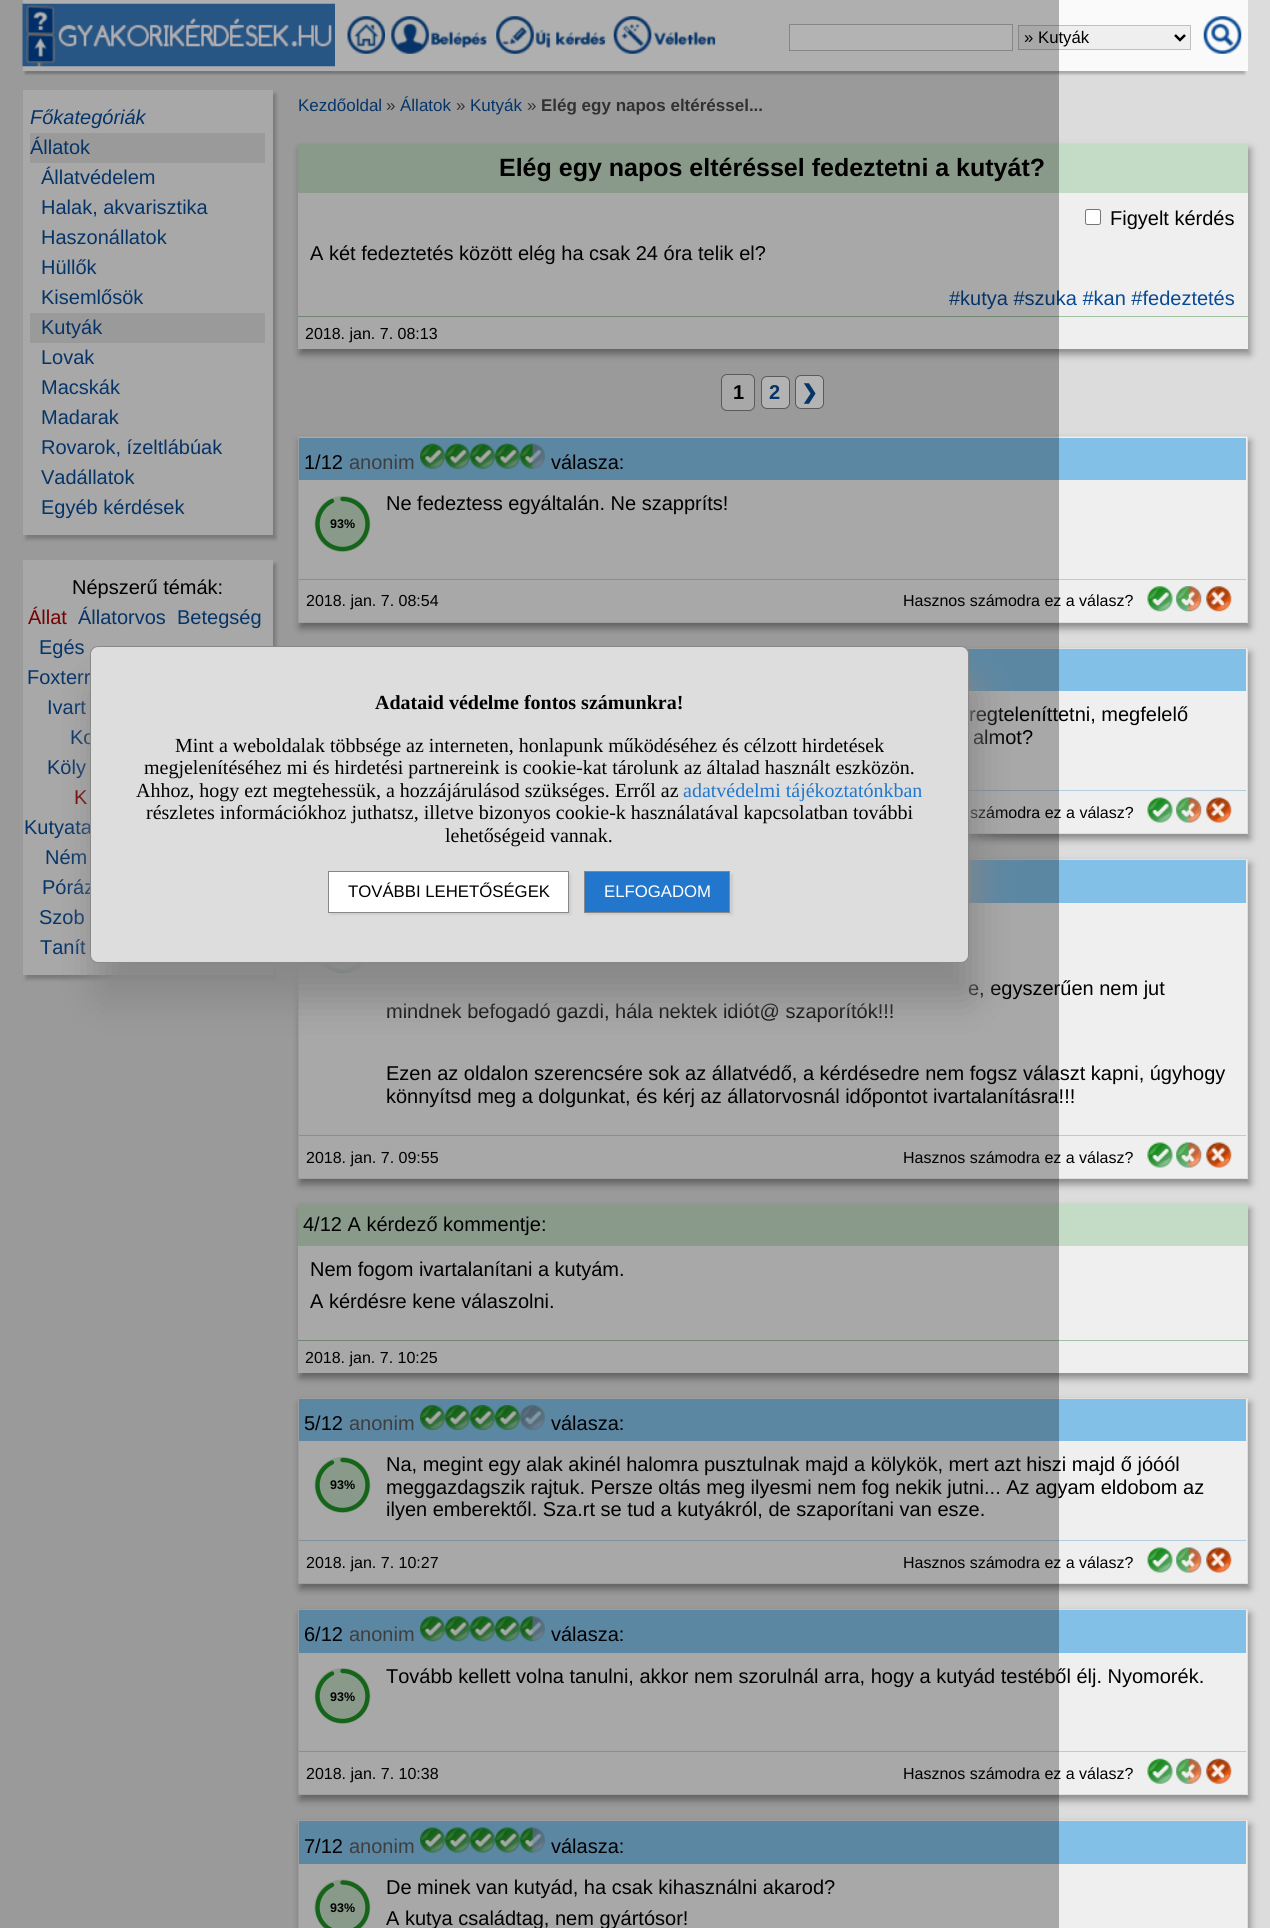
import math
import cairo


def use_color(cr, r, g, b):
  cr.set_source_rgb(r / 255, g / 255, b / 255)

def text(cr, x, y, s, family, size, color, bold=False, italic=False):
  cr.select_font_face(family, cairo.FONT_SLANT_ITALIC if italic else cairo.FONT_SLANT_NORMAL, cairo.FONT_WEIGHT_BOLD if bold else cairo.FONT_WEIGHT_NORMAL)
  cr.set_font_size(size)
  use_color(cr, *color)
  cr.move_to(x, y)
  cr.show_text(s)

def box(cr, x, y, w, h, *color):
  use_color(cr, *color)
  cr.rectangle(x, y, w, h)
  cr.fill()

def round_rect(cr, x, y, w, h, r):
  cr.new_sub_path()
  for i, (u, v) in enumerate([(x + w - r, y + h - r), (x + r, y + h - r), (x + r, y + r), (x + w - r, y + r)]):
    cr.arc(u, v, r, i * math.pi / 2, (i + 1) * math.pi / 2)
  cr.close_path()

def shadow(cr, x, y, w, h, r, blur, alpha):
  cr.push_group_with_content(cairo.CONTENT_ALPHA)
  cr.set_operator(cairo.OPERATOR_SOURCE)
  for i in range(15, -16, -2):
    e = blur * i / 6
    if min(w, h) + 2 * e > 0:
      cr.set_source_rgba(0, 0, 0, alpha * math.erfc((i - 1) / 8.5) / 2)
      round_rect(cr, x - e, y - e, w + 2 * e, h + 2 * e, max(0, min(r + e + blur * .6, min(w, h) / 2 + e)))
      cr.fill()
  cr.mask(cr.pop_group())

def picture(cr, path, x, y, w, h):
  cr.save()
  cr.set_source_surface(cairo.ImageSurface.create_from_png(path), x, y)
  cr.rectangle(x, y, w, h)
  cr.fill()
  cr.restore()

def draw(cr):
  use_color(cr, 220, 220, 220)
  cr.paint()
  use_color(cr, 169, 169, 169)
  shadow(cr, 25, 8, 1220, 66, 0, 1, 1)
  box(cr, 23, 0, 1225, 71, 250, 250, 250)
  picture(cr, "img_01.png", 22, 3, 313, 64)
  picture(cr, "img_02.png", 347, 16, 38, 38)
  picture(cr, "img_03.png", 391, 16, 96, 38)
  picture(cr, "img_04.png", 496, 16, 110, 38)
  picture(cr, "img_05.png", 613, 16, 103, 38)
  use_color(cr, 255, 255, 255)
  cr.rectangle(789.5, 24.5, 223, 26)
  cr.fill_preserve()
  use_color(cr, 191, 191, 191)
  cr.set_line_width(1)
  cr.stroke()
  use_color(cr, 239, 239, 239)
  cr.rectangle(1018.5, 25.5, 172, 24)
  cr.fill_preserve()
  use_color(cr, 191, 191, 191)
  cr.stroke()
  cr.new_path()
  cr.move_to(1175, 35)
  cr.line_to(1180, 40)
  cr.line_to(1185, 35)
  use_color(cr, 0, 0, 0)
  cr.set_line_width(2.5)
  cr.stroke()
  picture(cr, "img_06.png", 1203, 16, 39, 38)
  use_color(cr, 170, 170, 170)
  shadow(cr, 26, 94, 250, 445, 0, 2, 1)
  box(cr, 23, 90, 250, 445, 239, 239, 239)
  box(cr, 30, 133, 235, 30, 220, 220, 220)
  box(cr, 30, 313, 235, 30, 220, 220, 220)
  use_color(cr, 170, 170, 170)
  shadow(cr, 26, 564, 250, 415, 0, 2, 1)
  box(cr, 23, 560, 250, 415, 239, 239, 239)
  use_color(cr, 136, 136, 136)
  shadow(cr, 300, 149, 950, 205, 0, 4, 1)
  box(cr, 298, 193, 950, 156, 239, 239, 239)
  box(cr, 298, 144, 950, 49, 196, 220, 197)
  use_color(cr, 255, 255, 255)
  round_rect(cr, 1085.5, 209.5, 15, 15, 2)
  cr.fill_preserve()
  use_color(cr, 118, 118, 118)
  cr.set_line_width(1)
  cr.stroke()
  box(cr, 298, 316, 950, 1, 161, 192, 164)
  use_color(cr, 239, 239, 239)
  round_rect(cr, 721.5, 374.5, 33, 36, 5.5)
  cr.fill_preserve()
  use_color(cr, 128, 128, 128)
  cr.stroke()
  use_color(cr, 255, 255, 255)
  round_rect(cr, 761.5, 376.5, 28, 32, 5.5)
  cr.fill_preserve()
  use_color(cr, 128, 128, 128)
  cr.stroke()
  use_color(cr, 255, 255, 255)
  round_rect(cr, 795.5, 375.5, 28, 33, 5.5)
  cr.fill_preserve()
  use_color(cr, 128, 128, 128)
  cr.stroke()
  use_color(cr, 136, 136, 136)
  shadow(cr, 300, 441, 950, 187, 0, 4, 1)
  use_color(cr, 239, 239, 239)
  cr.rectangle(298.5, 436.5, 949, 186)
  cr.fill_preserve()
  use_color(cr, 223, 223, 223)
  cr.stroke()
  box(cr, 299, 438, 947, 42, 131, 192, 232)
  picture(cr, "img_07.png", 420, 443, 25, 26)
  picture(cr, "img_07.png", 445, 443, 25, 26)
  picture(cr, "img_07.png", 470, 443, 25, 26)
  picture(cr, "img_08.png", 495, 443, 25, 26)
  picture(cr, "img_09.png", 520, 443, 25, 26)
  use_color(cr, 196, 220, 197)
  cr.arc(342.5, 524, 28, 0, 2 * math.pi)
  cr.fill()
  cr.new_path()
  cr.move_to(342.5, 499)
  cr.curve_to(356.5, 499, 367.5, 510, 367.5, 524)
  cr.curve_to(367.5, 537.5, 356.5, 549, 342.5, 549)
  cr.curve_to(328.5, 549, 317.5, 537.5, 317.5, 524)
  cr.curve_to(317.5, 514, 323.5, 505, 332, 501)
  use_color(cr, 31, 141, 37)
  cr.set_line_width(4.4)
  cr.set_line_cap(cairo.LINE_CAP_ROUND)
  cr.stroke()
  box(cr, 299, 579, 947, 1, 181, 206, 223)
  picture(cr, "img_10.png", 1147, 586, 26, 26)
  picture(cr, "img_11.png", 1176, 586, 26, 26)
  picture(cr, "img_12.png", 1206, 586, 26, 26)
  use_color(cr, 136, 136, 136)
  shadow(cr, 300, 653, 950, 186, 0, 4, 1)
  box(cr, 969, 649, 278, 184, 239, 239, 239)
  cr.rectangle(298.5, 648.5, 949, 185)
  use_color(cr, 223, 223, 223)
  cr.set_line_width(1)
  cr.set_line_cap(cairo.LINE_CAP_BUTT)
  cr.stroke()
  box(cr, 967, 649, 279, 42, 131, 192, 232)
  box(cr, 969, 790, 277, 1, 181, 206, 223)
  picture(cr, "img_13.png", 1147, 797, 26, 26)
  picture(cr, "img_14.png", 1176, 797, 26, 26)
  picture(cr, "img_15.png", 1206, 797, 26, 26)
  use_color(cr, 136, 136, 136)
  shadow(cr, 300, 864, 950, 320, 0, 4, 1)
  use_color(cr, 239, 239, 239)
  cr.rectangle(298.5, 859.5, 949, 319)
  cr.fill_preserve()
  use_color(cr, 223, 223, 223)
  cr.stroke()
  box(cr, 969, 860, 277, 43, 131, 192, 232)
  cr.new_path()
  cr.move_to(342.5, 921)
  cr.curve_to(356.5, 921, 367.5, 932.5, 367.5, 946)
  cr.curve_to(367.5, 960, 356.5, 971, 342.5, 971)
  cr.curve_to(328.5, 971, 317.5, 960, 317.5, 946)
  cr.curve_to(317.5, 937.5, 322, 929.5, 329, 925)
  use_color(cr, 31, 141, 37)
  cr.set_line_width(4.4)
  cr.set_line_cap(cairo.LINE_CAP_ROUND)
  cr.stroke()
  box(cr, 299, 1135, 947, 1, 181, 206, 223)
  picture(cr, "img_13.png", 1147, 1142, 26, 26)
  picture(cr, "img_14.png", 1176, 1142, 26, 26)
  picture(cr, "img_15.png", 1206, 1142, 26, 26)
  use_color(cr, 136, 136, 136)
  shadow(cr, 300, 1209, 950, 169, 0, 4, 1)
  box(cr, 298, 1246, 950, 127, 239, 239, 239)
  box(cr, 298, 1204, 950, 42, 196, 220, 197)
  box(cr, 298, 1340, 950, 1, 161, 192, 164)
  use_color(cr, 136, 136, 136)
  shadow(cr, 300, 1403, 950, 186, 0, 4, 1)
  use_color(cr, 239, 239, 239)
  cr.rectangle(298.5, 1398.5, 949, 185)
  cr.fill_preserve()
  use_color(cr, 223, 223, 223)
  cr.set_line_width(1)
  cr.set_line_cap(cairo.LINE_CAP_BUTT)
  cr.stroke()
  box(cr, 299, 1399, 947, 42, 131, 192, 232)
  picture(cr, "img_16.png", 420, 1405, 25, 25)
  picture(cr, "img_16.png", 445, 1405, 25, 25)
  picture(cr, "img_16.png", 470, 1405, 25, 25)
  picture(cr, "img_17.png", 495, 1405, 25, 25)
  picture(cr, "img_18.png", 520, 1405, 25, 25)
  use_color(cr, 196, 220, 197)
  cr.arc(342.5, 1485, 28, 0, 2 * math.pi)
  cr.fill()
  cr.new_path()
  cr.move_to(342.5, 1460)
  cr.curve_to(356.5, 1460, 367.5, 1471, 367.5, 1485)
  cr.curve_to(367.5, 1499, 356.5, 1510, 342.5, 1510)
  cr.curve_to(328.5, 1510, 317.5, 1499, 317.5, 1485)
  cr.curve_to(317.5, 1475, 323.5, 1466.5, 332, 1462.5)
  use_color(cr, 31, 141, 37)
  cr.set_line_width(4.4)
  cr.set_line_cap(cairo.LINE_CAP_ROUND)
  cr.stroke()
  box(cr, 299, 1540, 947, 1, 181, 206, 223)
  picture(cr, "img_19.png", 1147, 1547, 26, 26)
  picture(cr, "img_20.png", 1176, 1547, 26, 26)
  picture(cr, "img_21.png", 1206, 1547, 26, 26)
  use_color(cr, 136, 136, 136)
  shadow(cr, 300, 1614, 950, 186, 0, 4, 1)
  use_color(cr, 239, 239, 239)
  cr.rectangle(298.5, 1609.5, 949, 185)
  cr.fill_preserve()
  use_color(cr, 223, 223, 223)
  cr.set_line_width(1)
  cr.set_line_cap(cairo.LINE_CAP_BUTT)
  cr.stroke()
  box(cr, 299, 1610, 947, 43, 131, 192, 232)
  picture(cr, "img_22.png", 420, 1616, 25, 26)
  picture(cr, "img_22.png", 445, 1616, 25, 26)
  picture(cr, "img_22.png", 470, 1616, 25, 26)
  picture(cr, "img_23.png", 495, 1616, 25, 26)
  picture(cr, "img_24.png", 520, 1616, 25, 26)
  use_color(cr, 196, 220, 197)
  cr.arc(342.5, 1696, 28, 0, 2 * math.pi)
  cr.fill()
  cr.new_path()
  cr.move_to(342.5, 1671)
  cr.curve_to(356.5, 1671, 367.5, 1682.5, 367.5, 1696)
  cr.curve_to(367.5, 1710, 356.5, 1721, 342.5, 1721)
  cr.curve_to(328.5, 1721, 317.5, 1710, 317.5, 1696)
  cr.curve_to(317.5, 1686.5, 323.5, 1677.5, 332, 1673.5)
  use_color(cr, 31, 141, 37)
  cr.set_line_width(4.4)
  cr.set_line_cap(cairo.LINE_CAP_ROUND)
  cr.stroke()
  box(cr, 299, 1751, 947, 1, 181, 206, 223)
  picture(cr, "img_25.png", 1147, 1758, 26, 26)
  picture(cr, "img_26.png", 1176, 1758, 26, 26)
  picture(cr, "img_27.png", 1206, 1758, 26, 26)
  use_color(cr, 136, 136, 136)
  shadow(cr, 300, 1825, 950, 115, 0, 4, 1)
  use_color(cr, 239, 239, 239)
  cr.rectangle(298.5, 1820.5, 949, 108)
  cr.fill_preserve()
  use_color(cr, 223, 223, 223)
  cr.set_line_width(1)
  cr.set_line_cap(cairo.LINE_CAP_BUTT)
  cr.stroke()
  box(cr, 299, 1821, 947, 43, 131, 192, 232)
  picture(cr, "img_28.png", 420, 1827, 25, 26)
  picture(cr, "img_28.png", 445, 1827, 25, 26)
  picture(cr, "img_28.png", 470, 1827, 25, 26)
  picture(cr, "img_29.png", 495, 1827, 25, 26)
  picture(cr, "img_30.png", 520, 1827, 25, 26)
  use_color(cr, 196, 220, 197)
  cr.arc(342.5, 1907.5, 28, 0, 2 * math.pi)
  cr.fill()
  cr.new_path()
  cr.move_to(342.5, 1882.5)
  cr.curve_to(356.5, 1882.5, 367.5, 1893.5, 367.5, 1907.5)
  cr.curve_to(367.5, 1921.5, 356.5, 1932.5, 342.5, 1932.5)
  cr.curve_to(328.5, 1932.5, 317.5, 1921.5, 317.5, 1907.5)
  cr.curve_to(317.5, 1897.5, 323.5, 1889, 332, 1885)
  use_color(cr, 31, 141, 37)
  cr.set_line_width(4.4)
  cr.set_line_cap(cairo.LINE_CAP_ROUND)
  cr.stroke()
  text(cr, 1024, 43, "» Kutyák", "Liberation Sans", 16.75, (0, 0, 0))
  text(cr, 30, 124, "Főkategóriák", "Liberation Sans", 20, (8, 74, 148), italic=True)
  text(cr, 30, 154, "Állatok", "Liberation Sans", 20, (8, 74, 148))
  text(cr, 41, 184, "Állatvédelem", "Liberation Sans", 20, (8, 74, 148))
  text(cr, 41, 214, "Halak, akvarisztika", "Liberation Sans", 20, (8, 74, 148))
  text(cr, 41, 244, "Haszonállatok", "Liberation Sans", 20, (8, 74, 148))
  text(cr, 41, 274, "Hüllők", "Liberation Sans", 20, (8, 74, 148))
  text(cr, 41, 304, "Kisemlősök", "Liberation Sans", 20, (8, 74, 148))
  text(cr, 41, 334, "Kutyák", "Liberation Sans", 20, (8, 74, 148))
  text(cr, 41, 364, "Lovak", "Liberation Sans", 20, (8, 74, 148))
  text(cr, 41, 394, "Macskák", "Liberation Sans", 20, (8, 74, 148))
  text(cr, 41, 424, "Madarak", "Liberation Sans", 20, (8, 74, 148))
  text(cr, 41, 454, "Rovarok, ízeltlábúak", "Liberation Sans", 20, (8, 74, 148))
  text(cr, 41, 484, "Vadállatok", "Liberation Sans", 20, (8, 74, 148))
  text(cr, 41, 514, "Egyéb kérdések", "Liberation Sans", 20, (8, 74, 148))
  text(cr, 72, 594, "Népszerű témák:", "Liberation Sans", 20, (0, 0, 0))
  text(cr, 28, 624, "Állat", "Liberation Sans", 20, (170, 0, 0))
  text(cr, 78, 624, "Állatorvos", "Liberation Sans", 20, (8, 74, 148))
  text(cr, 177, 624, "Betegség", "Liberation Sans", 20, (8, 74, 148))
  text(cr, 39, 654, "Egés", "Liberation Sans", 20, (8, 74, 148))
  text(cr, 27, 684, "Foxterr", "Liberation Sans", 20, (8, 74, 148))
  text(cr, 47, 714, "Ivart", "Liberation Sans", 20, (8, 74, 148))
  text(cr, 70, 744, "Ko", "Liberation Sans", 20, (8, 74, 148))
  text(cr, 47, 774, "Köly", "Liberation Sans", 20, (8, 74, 148))
  text(cr, 74, 804, "K", "Liberation Sans", 20, (170, 0, 0))
  text(cr, 24, 834, "Kutyata", "Liberation Sans", 20, (8, 74, 148))
  text(cr, 45, 864, "Ném", "Liberation Sans", 20, (8, 74, 148))
  text(cr, 42, 894, "Póráz", "Liberation Sans", 20, (8, 74, 148))
  text(cr, 39, 924, "Szob", "Liberation Sans", 20, (8, 74, 148))
  text(cr, 40, 954, "Tanít", "Liberation Sans", 20, (8, 74, 148))
  text(cr, 298, 111, "Kezdőoldal", "Liberation Sans", 17, (8, 74, 148))
  text(cr, 386, 111, "»", "Liberation Sans", 17, (70, 70, 70))
  text(cr, 400, 111, "Állatok", "Liberation Sans", 17, (8, 74, 148))
  text(cr, 456, 111, "»", "Liberation Sans", 17, (70, 70, 70))
  text(cr, 470, 111, "Kutyák", "Liberation Sans", 17, (8, 74, 148))
  text(cr, 527, 111, "»", "Liberation Sans", 17, (70, 70, 70))
  text(cr, 541, 111, "Elég egy napos eltéréssel...", "Liberation Sans", 17, (70, 70, 70), bold=True)
  text(cr, 499, 176, "Elég egy napos eltéréssel fedeztetni a kutyát?", "Liberation Sans", 25, (0, 0, 0), bold=True)
  text(cr, 1110, 225, "Figyelt kérdés", "Liberation Sans", 20, (0, 0, 0))
  text(cr, 310, 260, "A két fedeztetés között elég ha csak 24 óra telik el?", "Liberation Sans", 20, (0, 0, 0))
  text(cr, 949, 305, "#kutya #szuka #kan #fedeztetés", "Liberation Sans", 20, (8, 74, 148))
  text(cr, 305, 339, "2018. jan. 7. 08:13", "Liberation Sans", 16, (0, 0, 0))
  text(cr, 733, 399, "1", "Liberation Sans", 20, (0, 0, 0), bold=True)
  text(cr, 769, 399, "2", "Liberation Sans", 20, (8, 74, 148), bold=True)
  text(cr, 801, 399, "❯", "DejaVu Sans", 20, (8, 74, 148), bold=True)
  text(cr, 304, 469, "1/12", "Liberation Sans", 20, (0, 0, 0))
  text(cr, 349, 469, "anonim", "Liberation Sans", 20, (88, 88, 88))
  text(cr, 551, 469, "válasza:", "Liberation Sans", 20, (0, 0, 0))
  text(cr, 386, 510, "Ne fedeztess egyáltalán. Ne szappríts!", "Liberation Sans", 20, (0, 0, 0))
  text(cr, 330, 528, "93%", "Liberation Sans", 12.5, (0, 0, 0), bold=True)
  text(cr, 306, 606, "2018. jan. 7. 08:54", "Liberation Sans", 16, (0, 0, 0))
  text(cr, 903, 606, "Hasznos számodra ez a válasz?", "Liberation Sans", 16, (0, 0, 0))
  text(cr, 969, 721, "regteleníttetni, megfelelő", "Liberation Sans", 20, (0, 0, 0))
  text(cr, 973, 744, "almot?", "Liberation Sans", 20, (0, 0, 0))
  text(cr, 970, 818, "számodra ez a válasz?", "Liberation Sans", 16, (0, 0, 0))
  text(cr, 968, 995, "e, egyszerűen nem jut", "Liberation Sans", 20, (0, 0, 0))
  text(cr, 386, 1018, "mindnek befogadó gazdi, hála nektek idiót@ szaporítók!!!", "Liberation Sans", 20, (0, 0, 0))
  text(cr, 386, 1080, "Ezen az oldalon szerencsére sok az állatvédő, a kérdésedre nem fogsz választ kapni, úgyhogy", "Liberation Sans", 20, (0, 0, 0))
  text(cr, 386, 1103, "könnyítsd meg a dolgunkat, és kérj az állatorvosnál időpontot ivartalanításra!!!", "Liberation Sans", 20, (0, 0, 0))
  text(cr, 306, 1163, "2018. jan. 7. 09:55", "Liberation Sans", 16, (0, 0, 0))
  text(cr, 903, 1163, "Hasznos számodra ez a válasz?", "Liberation Sans", 16, (0, 0, 0))
  text(cr, 303, 1231, "4/12 A kérdező kommentje:", "Liberation Sans", 20, (0, 0, 0))
  text(cr, 310, 1276, "Nem fogom ivartalanítani a kutyám.", "Liberation Sans", 20, (0, 0, 0))
  text(cr, 310, 1308, "A kérdésre kene válaszolni.", "Liberation Sans", 20, (0, 0, 0))
  text(cr, 305, 1363, "2018. jan. 7. 10:25", "Liberation Sans", 16, (0, 0, 0))
  text(cr, 304, 1430, "5/12", "Liberation Sans", 20, (0, 0, 0))
  text(cr, 349, 1430, "anonim", "Liberation Sans", 20, (88, 88, 88))
  text(cr, 551, 1430, "válasza:", "Liberation Sans", 20, (0, 0, 0))
  text(cr, 330, 1489, "93%", "Liberation Sans", 12.5, (0, 0, 0), bold=True)
  text(cr, 386, 1471, "Na, megint egy alak akinél halomra pusztulnak majd a kölykök, mert azt hiszi majd ő jóóól", "Liberation Sans", 20, (0, 0, 0))
  text(cr, 386, 1494, "meggazdagszik rajtuk. Persze oltás meg ilyesmi nem fog nekik jutni... Az agyam eldobom az", "Liberation Sans", 20, (0, 0, 0))
  text(cr, 386, 1516, "ilyen emberektől. Sza.rt se tud a kutyákról, de szaporítani van esze.", "Liberation Sans", 20, (0, 0, 0))
  text(cr, 306, 1568, "2018. jan. 7. 10:27", "Liberation Sans", 16, (0, 0, 0))
  text(cr, 903, 1568, "Hasznos számodra ez a válasz?", "Liberation Sans", 16, (0, 0, 0))
  text(cr, 304, 1641, "6/12", "Liberation Sans", 20, (0, 0, 0))
  text(cr, 349, 1641, "anonim", "Liberation Sans", 20, (88, 88, 88))
  text(cr, 551, 1641, "válasza:", "Liberation Sans", 20, (0, 0, 0))
  text(cr, 386, 1683, "Tovább kellett volna tanulni, akkor nem szorulnál arra, hogy a kutyád testéből élj. Nyomorék.", "Liberation Sans", 20, (0, 0, 0))
  text(cr, 330, 1701, "93%", "Liberation Sans", 12.5, (0, 0, 0), bold=True)
  text(cr, 306, 1779, "2018. jan. 7. 10:38", "Liberation Sans", 16, (0, 0, 0))
  text(cr, 903, 1779, "Hasznos számodra ez a válasz?", "Liberation Sans", 16, (0, 0, 0))
  text(cr, 304, 1853, "7/12", "Liberation Sans", 20, (0, 0, 0))
  text(cr, 349, 1853, "anonim", "Liberation Sans", 20, (88, 88, 88))
  text(cr, 551, 1853, "válasza:", "Liberation Sans", 20, (0, 0, 0))
  text(cr, 330, 1912, "93%", "Liberation Sans", 12.5, (0, 0, 0), bold=True)
  text(cr, 386, 1894, "De minek van kutyád, ha csak kihasználni akarod?", "Liberation Sans", 20, (0, 0, 0))
  text(cr, 386, 1925, "A kutya családtag, nem gyártósor!", "Liberation Sans", 20, (0, 0, 0))
  cr.set_source_rgba(0, 0, 0, 0.3)
  cr.rectangle(0, 0, 1059, 1928)
  cr.fill()
  use_color(cr, 136, 136, 136)
  shadow(cr, 96, 684, 879, 316, 8, 19, 1)
  use_color(cr, 221, 221, 221)
  round_rect(cr, 90.5, 646.5, 878, 316, 7.5)
  cr.fill_preserve()
  use_color(cr, 136, 136, 136)
  cr.set_line_width(1)
  cr.set_line_cap(cairo.LINE_CAP_BUTT)
  cr.stroke()
  text(cr, 375, 709, "Adataid védelme fontos számunkra!", "Liberation Serif", 20, (0, 0, 0), bold=True)
  text(cr, 175, 752, "Mint a weboldalak többsége az interneten, honlapunk működéséhez és célzott hirdetések", "Liberation Serif", 20, (0, 0, 0))
  text(cr, 144, 774, "megjelenítéséhez mi és hirdetési partnereink is cookie-kat tárolunk az általad használt eszközön.", "Liberation Serif", 20, (0, 0, 0))
  text(cr, 136, 797, "Ahhoz, hogy ezt megtehessük, a hozzájárulásod szükséges. Erről az", "Liberation Serif", 20, (0, 0, 0))
  text(cr, 683, 797, "adatvédelmi tájékoztatónkban", "Liberation Serif", 20, (34, 119, 204))
  text(cr, 146, 819, "részletes információkhoz juthatsz, illetve bizonyos cookie-k használatával kapcsolatban további", "Liberation Serif", 20, (0, 0, 0))
  text(cr, 445, 842, "lehetőségeid vannak.", "Liberation Serif", 20, (0, 0, 0))
  use_color(cr, 205, 205, 205)
  shadow(cr, 330, 874, 241, 41, 0, 1, 1)
  use_color(cr, 255, 255, 255)
  cr.rectangle(328.5, 871.5, 240, 41)
  cr.fill_preserve()
  use_color(cr, 136, 136, 136)
  cr.stroke()
  text(cr, 348, 897, "TOVÁBBI LEHETŐSÉGEK", "Liberation Sans", 16.75, (0, 0, 0))
  use_color(cr, 205, 205, 205)
  shadow(cr, 586, 874, 147, 41, 0, 1, 1)
  use_color(cr, 34, 119, 204)
  cr.rectangle(584.5, 871.5, 145, 41)
  cr.fill_preserve()
  use_color(cr, 136, 136, 136)
  cr.stroke()
  text(cr, 604, 897, "ELFOGADOM", "Liberation Sans", 16.75, (255, 255, 255))


surface = cairo.ImageSurface(cairo.FORMAT_RGB24, 1270, 1928)
cr = cairo.Context(surface)
options = cairo.FontOptions()
options.set_hint_metrics(cairo.HINT_METRICS_OFF)
options.set_hint_style(cairo.HINT_STYLE_NONE)
cr.set_font_options(options)
cr.set_miter_limit(4)
draw(cr)
surface.write_to_png("out.png")
